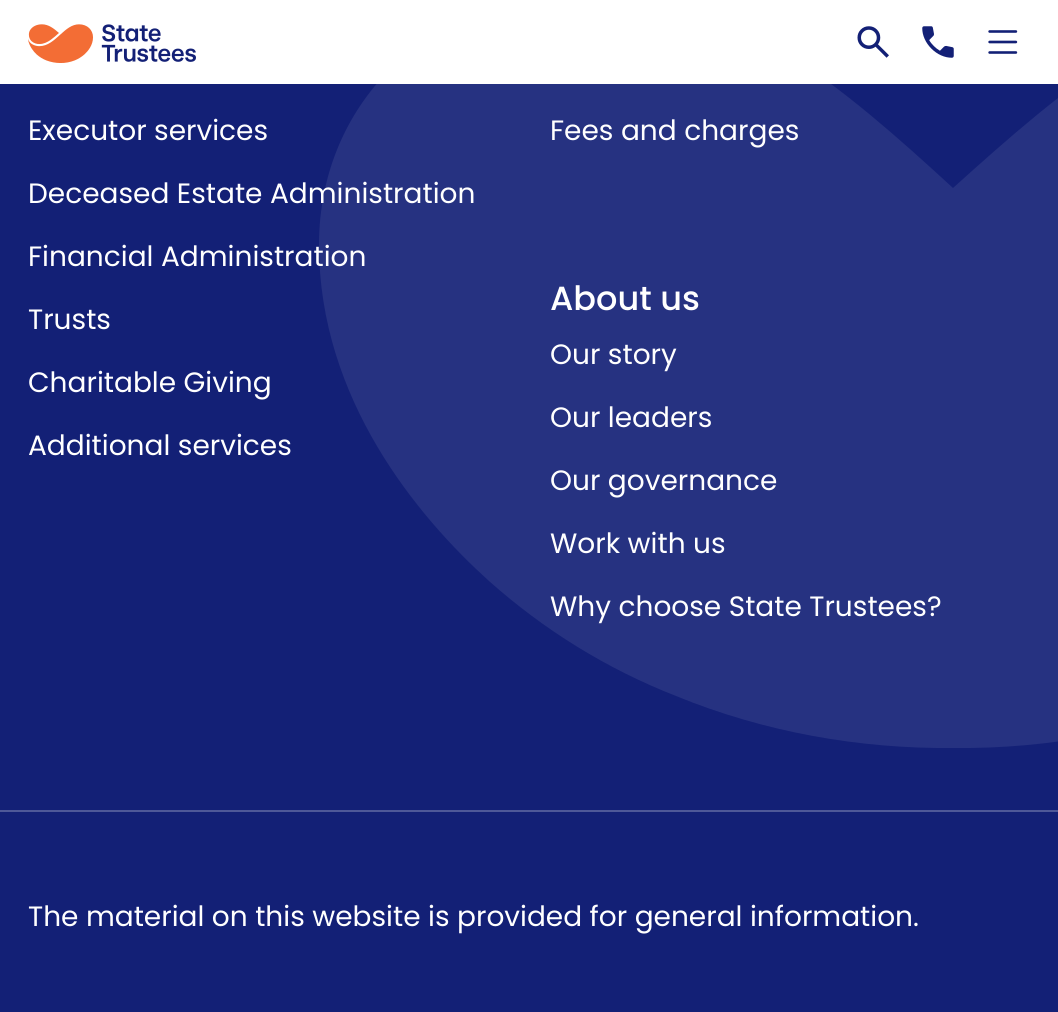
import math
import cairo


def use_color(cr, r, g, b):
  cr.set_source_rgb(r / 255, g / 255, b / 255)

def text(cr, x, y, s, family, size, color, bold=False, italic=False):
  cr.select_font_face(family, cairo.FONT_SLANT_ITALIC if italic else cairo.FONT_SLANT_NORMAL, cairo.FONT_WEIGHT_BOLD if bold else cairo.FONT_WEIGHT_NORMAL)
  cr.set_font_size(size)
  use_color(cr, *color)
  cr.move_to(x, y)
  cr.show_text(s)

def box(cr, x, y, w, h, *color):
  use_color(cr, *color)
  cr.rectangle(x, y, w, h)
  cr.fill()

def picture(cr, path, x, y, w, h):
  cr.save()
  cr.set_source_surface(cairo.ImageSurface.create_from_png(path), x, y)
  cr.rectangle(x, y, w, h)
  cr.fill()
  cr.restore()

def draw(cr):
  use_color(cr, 19, 32, 118)
  cr.paint()
  use_color(cr, 38, 50, 129)
  cr.new_path()
  cr.move_to(592, -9)
  cr.curve_to(432, -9, 319, 101, 319, 245)
  cr.curve_to(319, 399, 418, 517, 489, 581)
  cr.curve_to(544, 630, 607, 669, 676, 696)
  cr.curve_to(764, 732, 859, 749, 954, 748)
  cr.curve_to(1049, 749, 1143, 731, 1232, 696)
  cr.curve_to(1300, 669, 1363, 630, 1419, 581)
  cr.curve_to(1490, 517, 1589, 399, 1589, 245)
  cr.curve_to(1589, 101, 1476, -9, 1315, -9)
  cr.curve_to(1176, -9, 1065, 87, 953, 188)
  cr.curve_to(843, 87, 732, -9, 592, -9)
  cr.close_path()
  cr.fill()
  box(cr, 0, 0, 1058, 84, 255, 255, 255)
  picture(cr, "img_01.png", 28, 24, 168, 39)
  picture(cr, "img_02.png", 857, 26, 32, 32)
  picture(cr, "img_03.png", 922, 26, 32, 32)
  picture(cr, "img_04.png", 988, 30, 30, 24)
  box(cr, 0, 810, 1058, 2, 78, 88, 152)
  text(cr, 28, 140, "Executor services", "Poppins", 28, (255, 255, 255))
  text(cr, 28, 203, "Deceased Estate Administration", "Poppins", 28, (255, 255, 255))
  text(cr, 28, 266, "Financial Administration", "Poppins", 28, (255, 255, 255))
  text(cr, 28, 329, "Trusts", "Poppins", 28, (255, 255, 255))
  text(cr, 28, 392, "Charitable Giving", "Poppins", 28, (255, 255, 255))
  text(cr, 28, 455, "Additional services", "Poppins", 28, (255, 255, 255))
  text(cr, 550, 140, "Fees and charges", "Poppins", 28, (255, 255, 255))
  text(cr, 550, 310, "About us", "Poppins Medium", 33.5, (255, 255, 255))
  text(cr, 550, 364, "Our story", "Poppins", 28, (255, 255, 255))
  text(cr, 550, 427, "Our leaders", "Poppins", 28, (255, 255, 255))
  text(cr, 550, 490, "Our governance", "Poppins", 28, (255, 255, 255))
  text(cr, 550, 553, "Work with us", "Poppins", 28, (255, 255, 255))
  text(cr, 550, 616, "Why choose State Trustees?", "Poppins", 28, (255, 255, 255))
  text(cr, 28, 926, "The material on this website is provided for general information.", "Poppins", 28, (255, 255, 255))


surface = cairo.ImageSurface(cairo.FORMAT_RGB24, 1058, 1012)
cr = cairo.Context(surface)
options = cairo.FontOptions()
options.set_hint_metrics(cairo.HINT_METRICS_OFF)
options.set_hint_style(cairo.HINT_STYLE_NONE)
cr.set_font_options(options)
cr.set_miter_limit(4)
draw(cr)
surface.write_to_png("out.png")
